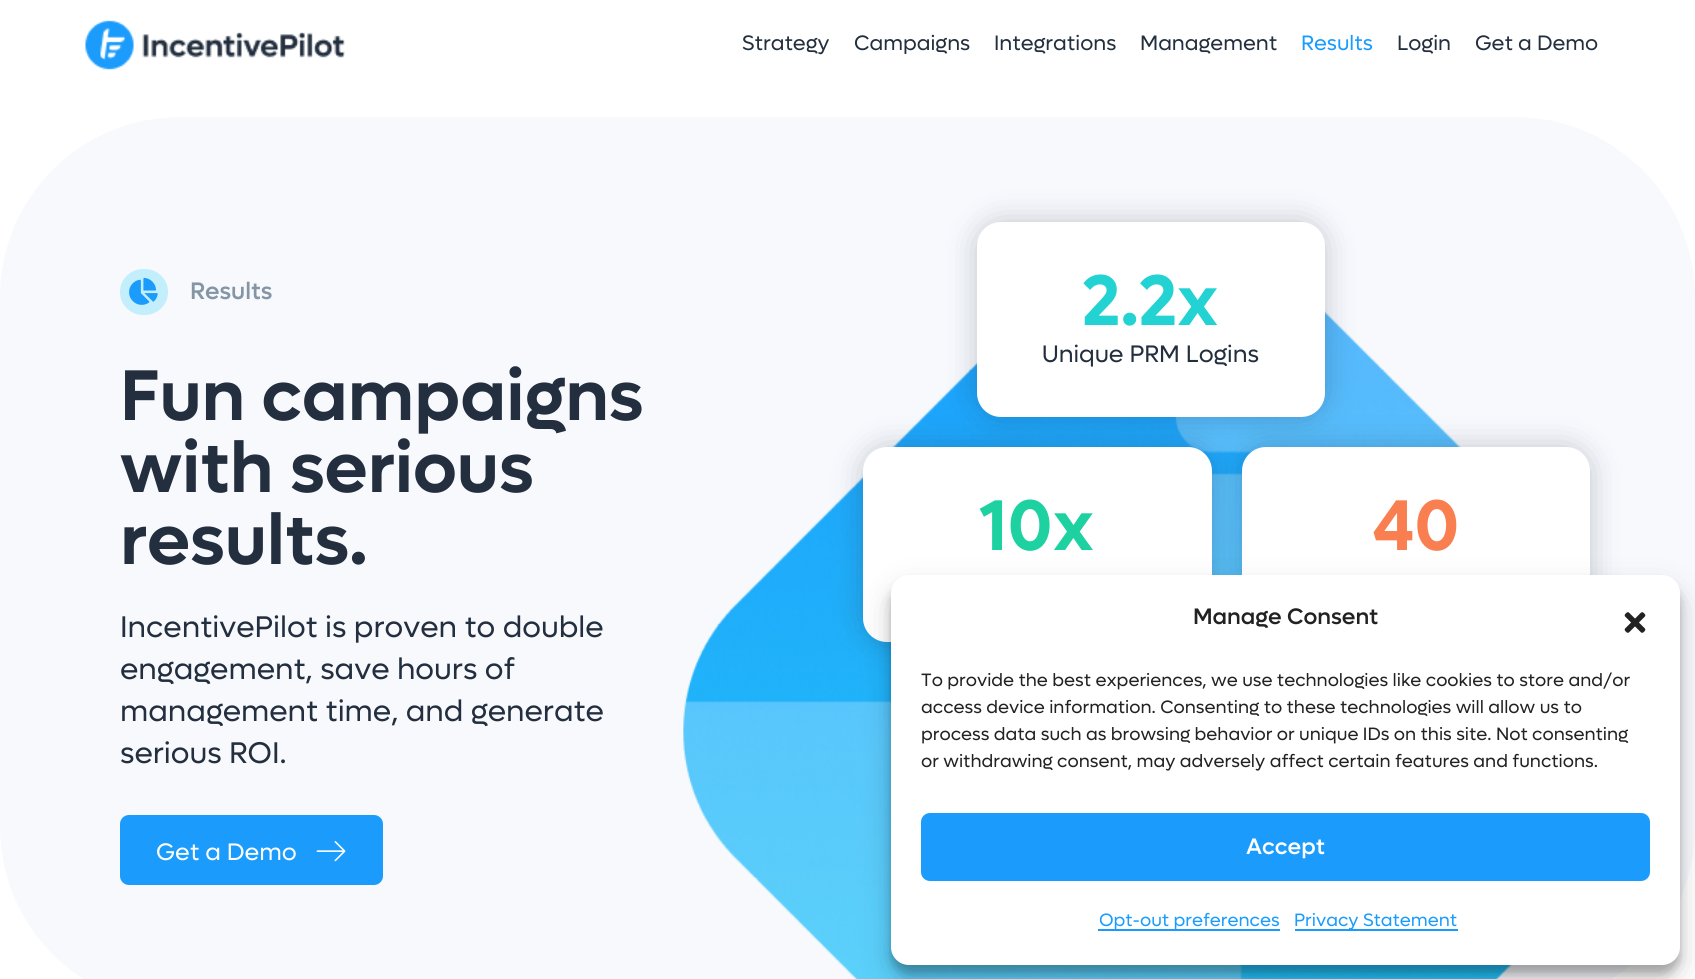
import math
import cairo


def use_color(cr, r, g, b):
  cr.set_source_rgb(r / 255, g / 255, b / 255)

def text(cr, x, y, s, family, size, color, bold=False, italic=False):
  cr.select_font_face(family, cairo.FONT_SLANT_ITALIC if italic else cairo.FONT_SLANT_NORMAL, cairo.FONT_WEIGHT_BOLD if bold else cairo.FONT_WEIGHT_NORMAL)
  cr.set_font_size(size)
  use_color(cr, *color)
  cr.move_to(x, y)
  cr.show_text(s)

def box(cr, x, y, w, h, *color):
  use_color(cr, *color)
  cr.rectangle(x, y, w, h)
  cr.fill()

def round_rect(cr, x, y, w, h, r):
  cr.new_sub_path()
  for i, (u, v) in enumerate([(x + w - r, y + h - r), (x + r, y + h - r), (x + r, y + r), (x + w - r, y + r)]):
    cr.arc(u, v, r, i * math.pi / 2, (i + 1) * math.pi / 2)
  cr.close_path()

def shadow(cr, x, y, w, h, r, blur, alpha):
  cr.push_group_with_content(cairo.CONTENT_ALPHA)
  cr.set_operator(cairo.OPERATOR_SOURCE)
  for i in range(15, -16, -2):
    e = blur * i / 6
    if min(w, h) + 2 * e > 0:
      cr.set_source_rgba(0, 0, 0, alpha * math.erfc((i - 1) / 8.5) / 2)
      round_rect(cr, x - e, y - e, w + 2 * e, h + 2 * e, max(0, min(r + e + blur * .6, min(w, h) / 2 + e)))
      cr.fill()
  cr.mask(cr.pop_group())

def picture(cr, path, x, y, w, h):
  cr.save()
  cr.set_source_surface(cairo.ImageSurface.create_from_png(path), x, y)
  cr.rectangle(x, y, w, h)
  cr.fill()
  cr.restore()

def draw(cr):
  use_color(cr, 255, 255, 255)
  cr.paint()
  picture(cr, "img_01.png", 85, 20, 260, 50)
  use_color(cr, 247, 249, 253)
  round_rect(cr, 0, 117, 1695, 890, 180)
  cr.fill()
  picture(cr, "img_02.png", 683, 311, 829, 668)
  use_color(cr, 195, 238, 252)
  round_rect(cr, 120, 269, 48, 46, 23)
  cr.fill()
  picture(cr, "img_03.png", 129, 277, 29, 28)
  use_color(cr, 27, 156, 252)
  round_rect(cr, 120, 815, 263, 70, 9)
  cr.fill()
  picture(cr, "img_04.png", 316, 841, 30, 21)
  use_color(cr, 35, 47, 62)
  shadow(cr, 977, 222, 348, 195, 24, 15, 0.26)
  use_color(cr, 255, 255, 255)
  round_rect(cr, 977, 222, 348, 195, 24)
  cr.fill()
  use_color(cr, 35, 47, 62)
  shadow(cr, 863, 447, 349, 195, 24, 15, 0.26)
  use_color(cr, 255, 255, 255)
  round_rect(cr, 863, 447, 349, 195, 24)
  cr.fill()
  use_color(cr, 35, 47, 62)
  shadow(cr, 1242, 447, 348, 230, 24, 15, 0.26)
  use_color(cr, 255, 255, 255)
  round_rect(cr, 1242, 447, 348, 230, 24)
  cr.fill()
  use_color(cr, 0, 0, 0)
  shadow(cr, 891, 584, 789, 390, 18, 4.5, 0.23)
  shadow(cr, 891, 590, 789, 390, 18, 15, 0.19)
  use_color(cr, 255, 255, 255)
  round_rect(cr, 891, 575, 789, 390, 18)
  cr.fill()
  picture(cr, "img_05.png", 1624, 612, 22, 21)
  use_color(cr, 27, 156, 252)
  round_rect(cr, 922, 814, 727, 66, 8)
  cr.fill_preserve()
  cr.stroke()
  box(cr, 1098, 929, 182, 2, 27, 156, 252)
  box(cr, 1295, 929, 163, 2, 27, 156, 252)
  text(cr, 742, 50, "Strategy", "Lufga", 21, (35, 47, 62))
  text(cr, 854, 50, "Campaigns", "Lufga", 21, (35, 47, 62))
  text(cr, 994, 50, "Integrations", "Lufga", 21, (35, 47, 62))
  text(cr, 1140, 50, "Management", "Lufga", 21, (35, 47, 62))
  text(cr, 1301, 50, "Results", "Lufga", 21, (27, 156, 252))
  text(cr, 1397, 50, "Login", "Lufga", 21, (35, 47, 62))
  text(cr, 1475, 50, "Get a Demo", "Lufga", 21, (35, 47, 62))
  text(cr, 190, 299, "Results", "Lufga Medium", 24, (132, 149, 166))
  text(cr, 120, 420, "Fun campaigns", "Lufga SemiBold", 72, (35, 47, 62))
  text(cr, 120, 492, "with serious", "Lufga SemiBold", 72, (35, 47, 62))
  text(cr, 120, 564, "results.", "Lufga SemiBold", 72, (35, 47, 62))
  text(cr, 120, 637, "IncentivePilot is proven to double", "Lufga", 30, (35, 47, 62))
  text(cr, 120, 679, "engagement, save hours of", "Lufga", 30, (35, 47, 62))
  text(cr, 120, 721, "management time, and generate", "Lufga", 30, (35, 47, 62))
  text(cr, 120, 763, "serious ROI.", "Lufga", 30, (35, 47, 62))
  text(cr, 156, 860, "Get a Demo", "Lufga", 24, (255, 255, 255))
  text(cr, 1082, 325, "2.2x", "Lufga SemiBold", 72, (35, 210, 210))
  text(cr, 1042, 362, "Unique PRM Logins", "Lufga", 24, (35, 47, 62))
  text(cr, 979, 550, "10x", "Lufga SemiBold", 72, (29, 209, 161))
  text(cr, 1372, 550, "40", "Lufga SemiBold", 72, (249, 127, 81))
  text(cr, 1193, 624, "Manage Consent", "Lufga Medium", 22.5, (34, 34, 34))
  text(cr, 921, 686, "To provide the best experiences, we use technologies like cookies to store and/or", "Lufga", 18, (34, 34, 34))
  text(cr, 921, 713, "access device information. Consenting to these technologies will allow us to", "Lufga", 18, (34, 34, 34))
  text(cr, 921, 740, "process data such as browsing behavior or unique IDs on this site. Not consenting", "Lufga", 18, (34, 34, 34))
  text(cr, 921, 767, "or withdrawing consent, may adversely affect certain features and functions.", "Lufga", 18, (34, 34, 34))
  text(cr, 1246, 854, "Accept", "Lufga Medium", 22.5, (255, 255, 255))
  text(cr, 1099, 926, "Opt-out preferences", "Lufga", 18, (27, 156, 252))
  text(cr, 1294, 926, "Privacy Statement", "Lufga", 18, (27, 156, 252))


surface = cairo.ImageSurface(cairo.FORMAT_RGB24, 1695, 979)
cr = cairo.Context(surface)
options = cairo.FontOptions()
options.set_hint_metrics(cairo.HINT_METRICS_OFF)
options.set_hint_style(cairo.HINT_STYLE_NONE)
cr.set_font_options(options)
cr.set_miter_limit(4)
draw(cr)
surface.write_to_png("out.png")
